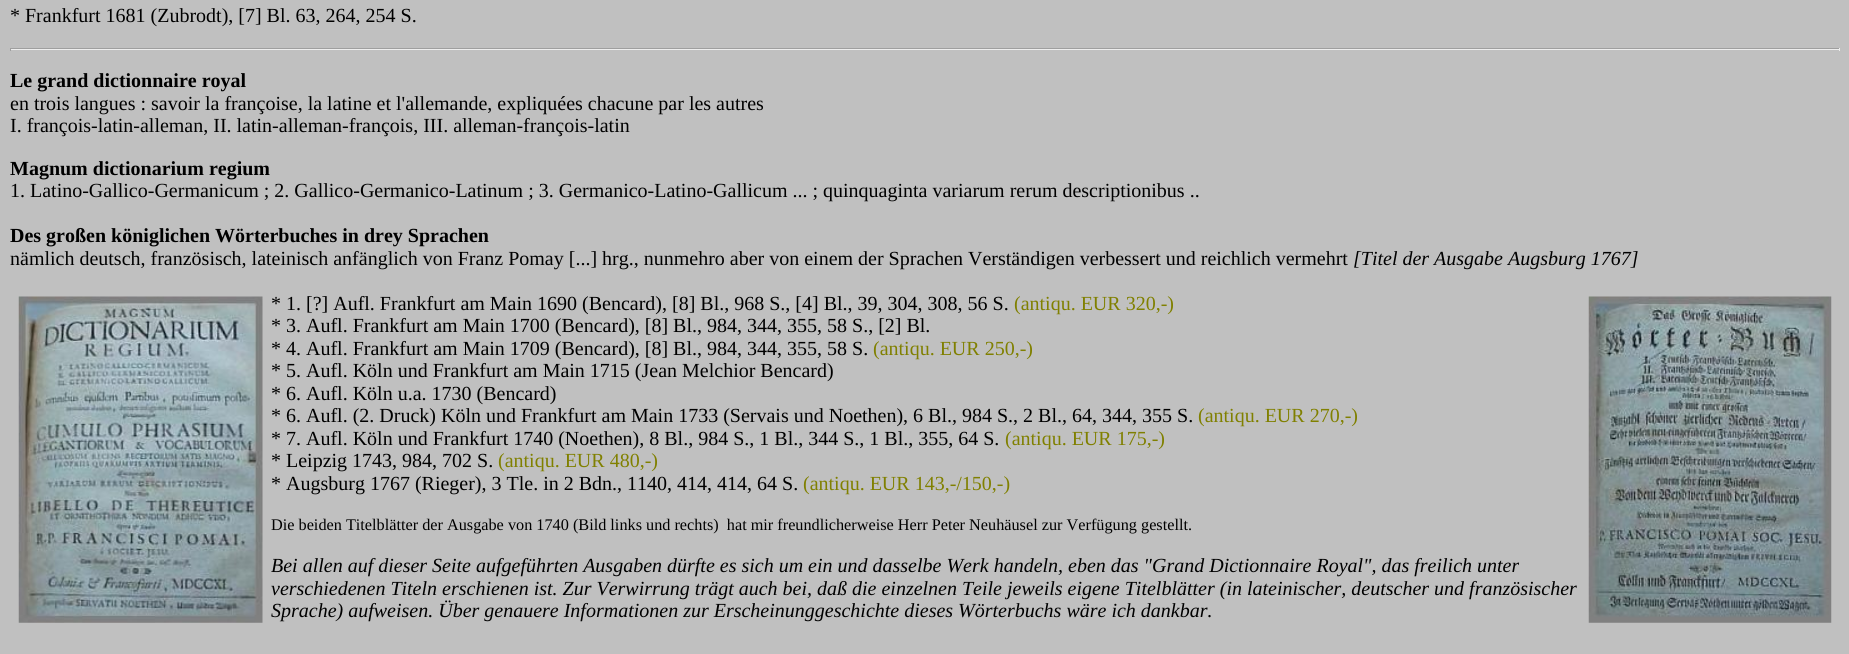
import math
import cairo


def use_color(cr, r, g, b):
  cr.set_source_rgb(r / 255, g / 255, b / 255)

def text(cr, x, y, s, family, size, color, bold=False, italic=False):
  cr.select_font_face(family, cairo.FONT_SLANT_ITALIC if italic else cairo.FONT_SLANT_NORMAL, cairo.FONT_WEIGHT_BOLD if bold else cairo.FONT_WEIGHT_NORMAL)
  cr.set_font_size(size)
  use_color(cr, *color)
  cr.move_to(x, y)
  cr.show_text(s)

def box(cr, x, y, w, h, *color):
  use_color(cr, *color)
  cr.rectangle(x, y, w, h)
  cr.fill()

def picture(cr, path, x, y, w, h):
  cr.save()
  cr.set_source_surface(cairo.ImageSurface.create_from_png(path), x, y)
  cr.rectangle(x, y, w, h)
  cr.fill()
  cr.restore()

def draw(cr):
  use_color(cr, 192, 192, 192)
  cr.paint()
  box(cr, 10, 48, 1830, 1, 159, 159, 159)
  box(cr, 1839, 48, 1, 3, 238, 238, 238)
  box(cr, 10, 49, 1830, 1, 238, 238, 238)
  box(cr, 10, 48, 1, 3, 159, 159, 159)
  picture(cr, "img_01.png", 18, 296, 245, 327)
  picture(cr, "img_02.png", 1588, 296, 244, 327)
  text(cr, 10, 22, "* Frankfurt 1681 (Zubrodt), [7] Bl. 63, 264, 254 S.", "Liberation Serif", 20, (0, 0, 0))
  text(cr, 10, 87, "Le grand dictionnaire royal", "Liberation Serif", 20, (0, 0, 0), bold=True)
  text(cr, 10, 110, "en trois langues : savoir la françoise, la latine et l'allemande, expliquées chacune par les autres", "Liberation Serif", 20, (0, 0, 0))
  text(cr, 10, 132, "I. françois-latin-alleman, II. latin-alleman-françois, III. alleman-françois-latin", "Liberation Serif", 20, (0, 0, 0))
  text(cr, 10, 175, "Magnum dictionarium regium", "Liberation Serif", 20, (0, 0, 0), bold=True)
  text(cr, 10, 197, "1. Latino-Gallico-Germanicum ; 2. Gallico-Germanico-Latinum ; 3. Germanico-Latino-Gallicum ... ; quinquaginta variarum rerum descriptionibus ..", "Liberation Serif", 20, (0, 0, 0))
  text(cr, 10, 242, "Des großen königlichen Wörterbuches in drey Sprachen", "Liberation Serif", 20, (0, 0, 0), bold=True)
  text(cr, 10, 265, "nämlich deutsch, französisch, lateinisch anfänglich von Franz Pomay [...] hrg., nunmehro aber von einem der Sprachen Verständigen verbessert und reichlich vermehrt", "Liberation Serif", 20, (0, 0, 0))
  text(cr, 1353, 265, "[Titel der Ausgabe Augsburg 1767]", "Liberation Serif", 20, (0, 0, 0), italic=True)
  text(cr, 271, 310, "* 1. [?] Aufl. Frankfurt am Main 1690 (Bencard), [8] Bl., 968 S., [4] Bl., 39, 304, 308, 56 S.", "Liberation Serif", 20, (0, 0, 0))
  text(cr, 1014, 310, "(antiqu. EUR 320,-)", "Liberation Serif", 20, (128, 128, 0))
  text(cr, 271, 332, "* 3. Aufl. Frankfurt am Main 1700 (Bencard), [8] Bl., 984, 344, 355, 58 S., [2] Bl.", "Liberation Serif", 20, (0, 0, 0))
  text(cr, 271, 355, "* 4. Aufl. Frankfurt am Main 1709 (Bencard), [8] Bl., 984, 344, 355, 58 S.", "Liberation Serif", 20, (0, 0, 0))
  text(cr, 873, 355, "(antiqu. EUR 250,-)", "Liberation Serif", 20, (128, 128, 0))
  text(cr, 271, 377, "* 5. Aufl. Köln und Frankfurt am Main 1715 (Jean Melchior Bencard)", "Liberation Serif", 20, (0, 0, 0))
  text(cr, 271, 400, "* 6. Aufl. Köln u.a. 1730 (Bencard)", "Liberation Serif", 20, (0, 0, 0))
  text(cr, 271, 422, "* 6. Aufl. (2. Druck) Köln und Frankfurt am Main 1733 (Servais und Noethen), 6 Bl., 984 S., 2 Bl., 64, 344, 355 S.", "Liberation Serif", 20, (0, 0, 0))
  text(cr, 1198, 422, "(antiqu. EUR 270,-)", "Liberation Serif", 20, (128, 128, 0))
  text(cr, 271, 445, "* 7. Aufl. Köln und Frankfurt 1740 (Noethen), 8 Bl., 984 S., 1 Bl., 344 S., 1 Bl., 355, 64 S.", "Liberation Serif", 20, (0, 0, 0))
  text(cr, 1005, 445, "(antiqu. EUR 175,-)", "Liberation Serif", 20, (128, 128, 0))
  text(cr, 271, 467, "* Leipzig 1743, 984, 702 S.", "Liberation Serif", 20, (0, 0, 0))
  text(cr, 498, 467, "(antiqu. EUR 480,-)", "Liberation Serif", 20, (128, 128, 0))
  text(cr, 271, 490, "* Augsburg 1767 (Rieger), 3 Tle. in 2 Bdn., 1140, 414, 414, 64 S.", "Liberation Serif", 20, (0, 0, 0))
  text(cr, 803, 490, "(antiqu. EUR 143,-/150,-)", "Liberation Serif", 20, (128, 128, 0))
  text(cr, 271, 530, "Die beiden Titelblätter der Ausgabe von 1740 (Bild links und rechts)  hat mir freundlicherweise Herr Peter Neuhäusel zur Verfügung gestellt.", "Liberation Serif", 16.25, (0, 0, 0))
  text(cr, 271, 572, "Bei allen auf dieser Seite aufgeführten Ausgaben dürfte es sich um ein und dasselbe Werk handeln, eben das \"Grand Dictionnaire Royal\", das freilich unter", "Liberation Serif", 20, (0, 0, 0), italic=True)
  text(cr, 271, 595, "verschiedenen Titeln erschienen ist. Zur Verwirrung trägt auch bei, daß die einzelnen Teile jeweils eigene Titelblätter (in lateinischer, deutscher und französischer", "Liberation Serif", 20, (0, 0, 0), italic=True)
  text(cr, 271, 617, "Sprache) aufweisen. Über genauere Informationen zur Erscheinunggeschichte dieses Wörterbuchs wäre ich dankbar.", "Liberation Serif", 20, (0, 0, 0), italic=True)


surface = cairo.ImageSurface(cairo.FORMAT_RGB24, 1849, 654)
cr = cairo.Context(surface)
options = cairo.FontOptions()
options.set_hint_metrics(cairo.HINT_METRICS_OFF)
options.set_hint_style(cairo.HINT_STYLE_NONE)
cr.set_font_options(options)
cr.set_miter_limit(4)
draw(cr)
surface.write_to_png("out.png")
